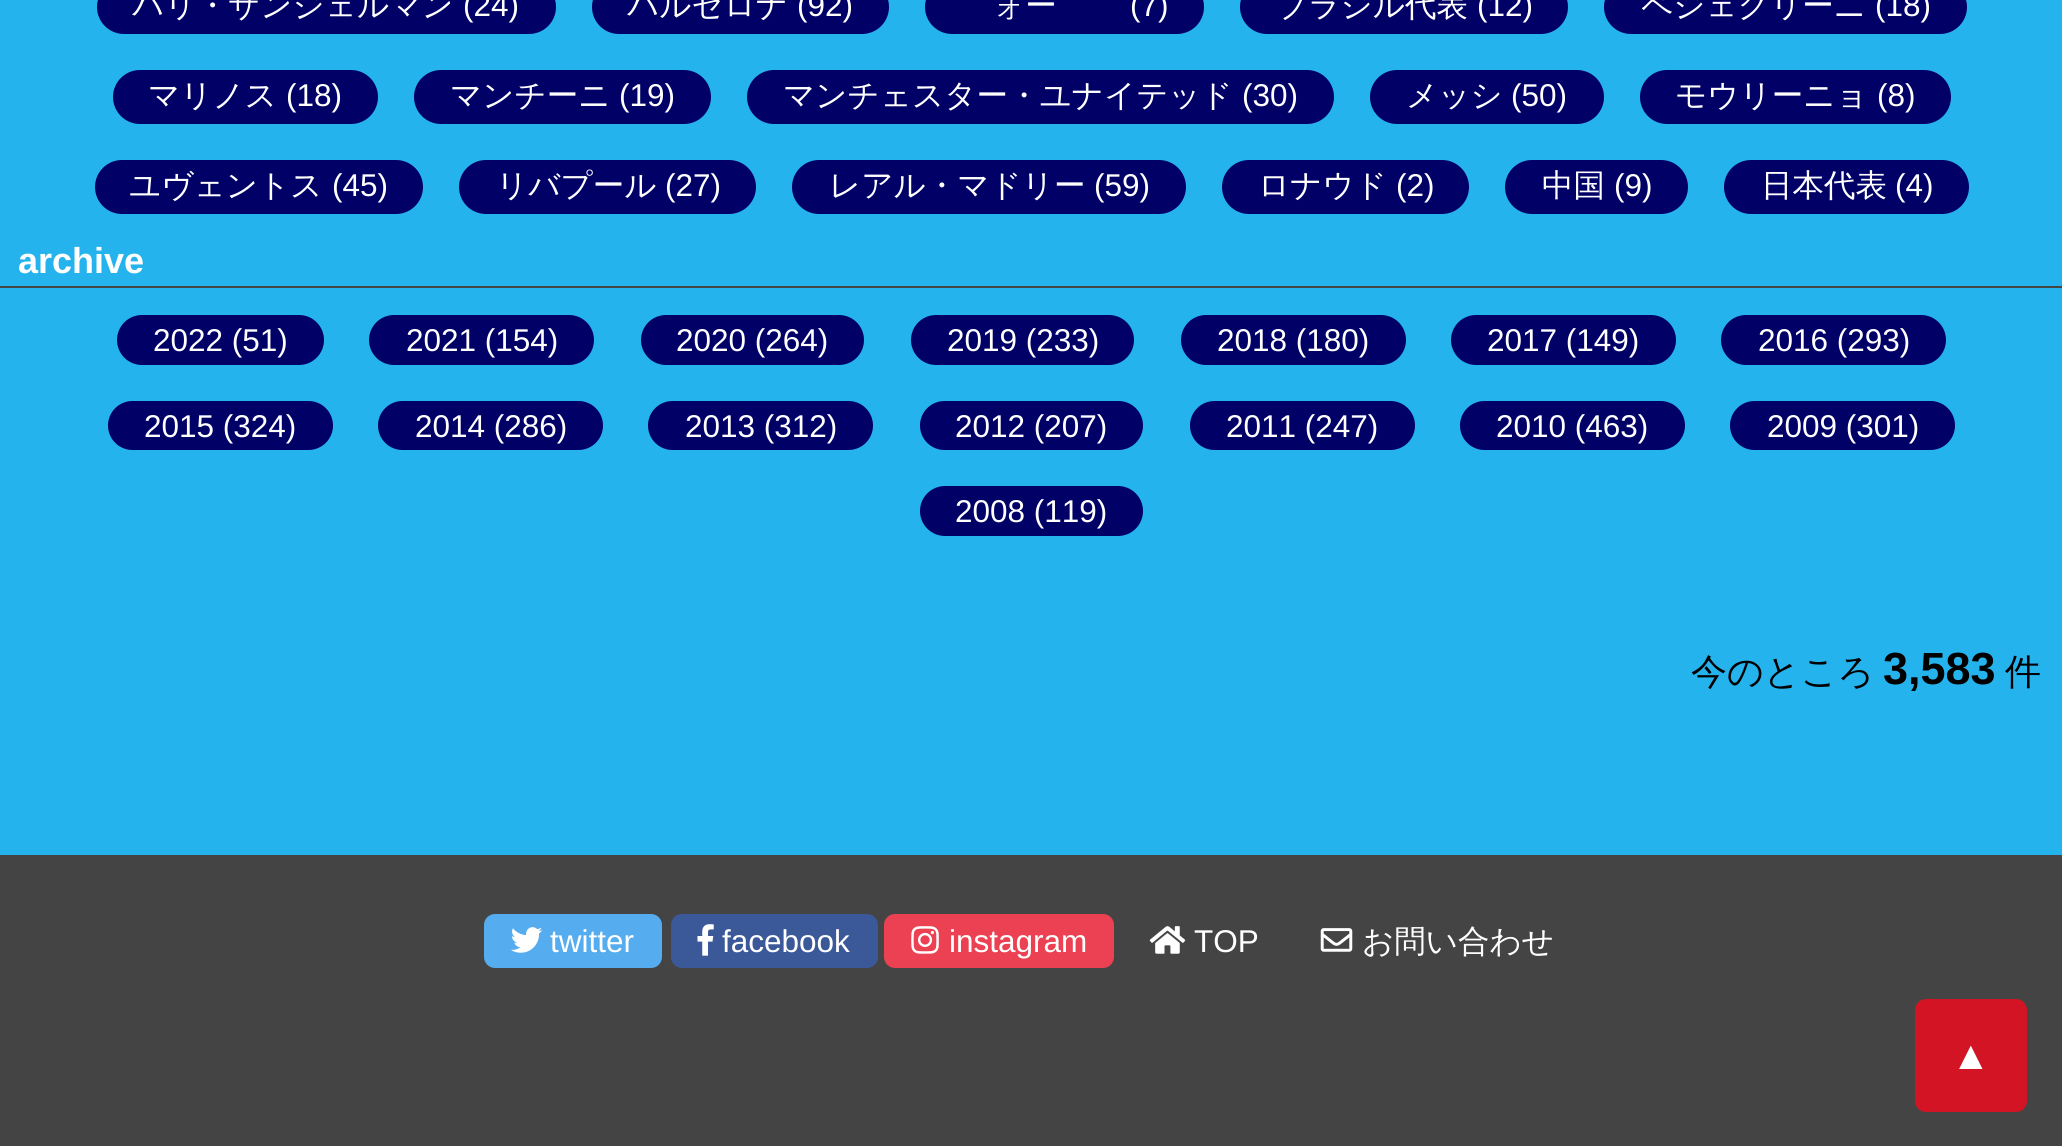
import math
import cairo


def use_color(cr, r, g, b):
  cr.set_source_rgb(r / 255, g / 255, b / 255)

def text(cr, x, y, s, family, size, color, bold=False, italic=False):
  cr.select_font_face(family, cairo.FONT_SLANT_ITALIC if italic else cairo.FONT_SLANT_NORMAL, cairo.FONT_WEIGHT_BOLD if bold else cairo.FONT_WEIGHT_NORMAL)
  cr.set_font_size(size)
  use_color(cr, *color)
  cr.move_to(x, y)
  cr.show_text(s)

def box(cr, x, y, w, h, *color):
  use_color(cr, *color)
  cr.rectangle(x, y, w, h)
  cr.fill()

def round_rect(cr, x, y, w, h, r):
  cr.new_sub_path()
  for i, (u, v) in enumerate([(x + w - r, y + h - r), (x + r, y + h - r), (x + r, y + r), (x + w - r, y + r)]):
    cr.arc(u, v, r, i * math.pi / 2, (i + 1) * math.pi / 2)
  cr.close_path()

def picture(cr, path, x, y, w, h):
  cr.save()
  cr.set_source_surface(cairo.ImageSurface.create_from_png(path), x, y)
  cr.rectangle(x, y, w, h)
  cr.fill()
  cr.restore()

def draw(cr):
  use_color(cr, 37, 179, 238)
  cr.paint()
  use_color(cr, 0, 0, 102)
  round_rect(cr, 97, -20, 459, 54, 27)
  cr.fill()
  round_rect(cr, 592, -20, 297, 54, 27)
  cr.fill()
  round_rect(cr, 925, -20, 279, 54, 27)
  cr.fill()
  round_rect(cr, 1240, -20, 328, 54, 27)
  cr.fill()
  round_rect(cr, 1604, -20, 363, 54, 27)
  cr.fill()
  round_rect(cr, 113, 70, 265, 54, 27)
  cr.fill()
  round_rect(cr, 414, 70, 297, 54, 27)
  cr.fill()
  round_rect(cr, 747, 70, 587, 54, 27)
  cr.fill()
  round_rect(cr, 1370, 70, 234, 54, 27)
  cr.fill()
  round_rect(cr, 1640, 70, 311, 54, 27)
  cr.fill()
  round_rect(cr, 95, 160, 328, 54, 27)
  cr.fill()
  round_rect(cr, 459, 160, 297, 54, 27)
  cr.fill()
  round_rect(cr, 792, 160, 394, 54, 27)
  cr.fill()
  round_rect(cr, 1222, 160, 247, 54, 27)
  cr.fill()
  round_rect(cr, 1505, 160, 183, 54, 27)
  cr.fill()
  round_rect(cr, 1724, 160, 245, 54, 27)
  cr.fill()
  box(cr, 0, 286, 2062, 2, 68, 68, 68)
  use_color(cr, 0, 0, 102)
  round_rect(cr, 117, 315, 207, 50, 25)
  cr.fill()
  round_rect(cr, 369, 315, 225, 50, 25)
  cr.fill()
  round_rect(cr, 641, 315, 223, 50, 25)
  cr.fill()
  round_rect(cr, 911, 315, 223, 50, 25)
  cr.fill()
  round_rect(cr, 1181, 315, 225, 50, 25)
  cr.fill()
  round_rect(cr, 1451, 315, 225, 50, 25)
  cr.fill()
  round_rect(cr, 1721, 315, 225, 50, 25)
  cr.fill()
  round_rect(cr, 108, 401, 225, 49, 24.5)
  cr.fill()
  round_rect(cr, 378, 401, 225, 49, 24.5)
  cr.fill()
  round_rect(cr, 648, 401, 225, 49, 24.5)
  cr.fill()
  round_rect(cr, 920, 401, 223, 49, 24.5)
  cr.fill()
  round_rect(cr, 1190, 401, 225, 49, 24.5)
  cr.fill()
  round_rect(cr, 1460, 401, 225, 49, 24.5)
  cr.fill()
  round_rect(cr, 1730, 401, 225, 49, 24.5)
  cr.fill()
  round_rect(cr, 920, 486, 223, 50, 25)
  cr.fill()
  box(cr, 0, 855, 2062, 291, 68, 68, 68)
  use_color(cr, 85, 172, 238)
  round_rect(cr, 484, 914, 178, 54, 11)
  cr.fill()
  picture(cr, "img_01.png", 511, 927, 32, 26)
  use_color(cr, 59, 89, 152)
  round_rect(cr, 671, 914, 207, 54, 11)
  cr.fill()
  picture(cr, "img_02.png", 697, 924, 17, 32)
  use_color(cr, 235, 65, 82)
  round_rect(cr, 884, 914, 230, 54, 11)
  cr.fill()
  picture(cr, "img_03.png", 911, 926, 28, 28)
  picture(cr, "img_04.png", 1149, 926, 37, 28)
  picture(cr, "img_05.png", 1320, 928, 33, 24)
  use_color(cr, 210, 20, 36)
  round_rect(cr, 1915, 999, 112, 113, 11)
  cr.fill()
  text(cr, 132, 16, "パリ・サンジェルマン", "WenQuanYi Zen Hei Medium", 31.5, (255, 255, 255))
  text(cr, 463, 16, "(24)", "Liberation Sans", 31.5, (255, 255, 255))
  text(cr, 627, 16, "バルセロナ", "WenQuanYi Zen Hei Medium", 31.5, (255, 255, 255))
  text(cr, 797, 16, "(92)", "Liberation Sans", 31.5, (255, 255, 255))
  text(cr, 993, 16, "ォー", "WenQuanYi Zen Hei Medium", 31.5, (255, 255, 255))
  text(cr, 1130, 16, "(7)", "Liberation Sans", 31.5, (255, 255, 255))
  text(cr, 1276, 16, "ブラジル代表", "WenQuanYi Zen Hei Medium", 31.5, (255, 255, 255))
  text(cr, 1477, 16, "(12)", "Liberation Sans", 31.5, (255, 255, 255))
  text(cr, 1641, 16, "ペジェグリーニ", "WenQuanYi Zen Hei Medium", 31.5, (255, 255, 255))
  text(cr, 1875, 16, "(18)", "Liberation Sans", 31.5, (255, 255, 255))
  text(cr, 148, 106, "マリノス", "WenQuanYi Zen Hei Medium", 31.5, (255, 255, 255))
  text(cr, 286, 106, "(18)", "Liberation Sans", 31.5, (255, 255, 255))
  text(cr, 450, 106, "マンチーニ", "WenQuanYi Zen Hei Medium", 31.5, (255, 255, 255))
  text(cr, 619, 106, "(19)", "Liberation Sans", 31.5, (255, 255, 255))
  text(cr, 783, 106, "マンチェスター・ユナイテッド", "WenQuanYi Zen Hei Medium", 31.5, (255, 255, 255))
  text(cr, 1242, 106, "(30)", "Liberation Sans", 31.5, (255, 255, 255))
  text(cr, 1406, 106, "メッシ", "WenQuanYi Zen Hei Medium", 31.5, (255, 255, 255))
  text(cr, 1511, 106, "(50)", "Liberation Sans", 31.5, (255, 255, 255))
  text(cr, 1675, 106, "モウリーニョ", "WenQuanYi Zen Hei Medium", 31.5, (255, 255, 255))
  text(cr, 1877, 106, "(8)", "Liberation Sans", 31.5, (255, 255, 255))
  text(cr, 129, 196, "ユヴェントス", "WenQuanYi Zen Hei Medium", 31.5, (255, 255, 255))
  text(cr, 332, 196, "(45)", "Liberation Sans", 31.5, (255, 255, 255))
  text(cr, 496, 196, "リバプール", "WenQuanYi Zen Hei Medium", 31.5, (255, 255, 255))
  text(cr, 665, 196, "(27)", "Liberation Sans", 31.5, (255, 255, 255))
  text(cr, 829, 196, "レアル・マドリー", "WenQuanYi Zen Hei Medium", 31.5, (255, 255, 255))
  text(cr, 1094, 196, "(59)", "Liberation Sans", 31.5, (255, 255, 255))
  text(cr, 1258, 196, "ロナウド", "WenQuanYi Zen Hei Medium", 31.5, (255, 255, 255))
  text(cr, 1396, 196, "(2)", "Liberation Sans", 31.5, (255, 255, 255))
  text(cr, 1542, 196, "中国", "WenQuanYi Zen Hei Medium", 31.5, (255, 255, 255))
  text(cr, 1614, 196, "(9)", "Liberation Sans", 31.5, (255, 255, 255))
  text(cr, 1761, 196, "日本代表", "WenQuanYi Zen Hei Medium", 31.5, (255, 255, 255))
  text(cr, 1895, 196, "(4)", "Liberation Sans", 31.5, (255, 255, 255))
  text(cr, 18, 273, "archive", "Liberation Sans", 36, (255, 255, 255), bold=True)
  text(cr, 153, 351, "2022 (51)", "Liberation Sans", 31.5, (255, 255, 255))
  text(cr, 406, 351, "2021 (154)", "Liberation Sans", 31.5, (255, 255, 255))
  text(cr, 676, 351, "2020 (264)", "Liberation Sans", 31.5, (255, 255, 255))
  text(cr, 947, 351, "2019 (233)", "Liberation Sans", 31.5, (255, 255, 255))
  text(cr, 1217, 351, "2018 (180)", "Liberation Sans", 31.5, (255, 255, 255))
  text(cr, 1487, 351, "2017 (149)", "Liberation Sans", 31.5, (255, 255, 255))
  text(cr, 1758, 351, "2016 (293)", "Liberation Sans", 31.5, (255, 255, 255))
  text(cr, 144, 437, "2015 (324)", "Liberation Sans", 31.5, (255, 255, 255))
  text(cr, 415, 437, "2014 (286)", "Liberation Sans", 31.5, (255, 255, 255))
  text(cr, 685, 437, "2013 (312)", "Liberation Sans", 31.5, (255, 255, 255))
  text(cr, 955, 437, "2012 (207)", "Liberation Sans", 31.5, (255, 255, 255))
  text(cr, 1226, 437, "2011 (247)", "Liberation Sans", 31.5, (255, 255, 255))
  text(cr, 1496, 437, "2010 (463)", "Liberation Sans", 31.5, (255, 255, 255))
  text(cr, 1767, 437, "2009 (301)", "Liberation Sans", 31.5, (255, 255, 255))
  text(cr, 955, 522, "2008 (119)", "Liberation Sans", 31.5, (255, 255, 255))
  text(cr, 1691, 684, "今のところ", "WenQuanYi Zen Hei Medium", 36, (0, 0, 0))
  text(cr, 1883, 684, "3,583", "Liberation Sans", 45, (0, 0, 0), bold=True)
  text(cr, 2005, 684, "件", "WenQuanYi Zen Hei Medium", 36, (0, 0, 0))
  text(cr, 550, 952, "twitter", "Liberation Sans", 31.5, (255, 255, 255))
  text(cr, 722, 952, "facebook", "Liberation Sans", 31.5, (255, 255, 255))
  text(cr, 949, 952, "instagram", "Liberation Sans", 31.5, (255, 255, 255))
  text(cr, 1194, 952, "TOP", "Liberation Sans", 31.5, (255, 255, 255))
  text(cr, 1362, 952, "お問い合わせ", "WenQuanYi Zen Hei Medium", 31.5, (255, 255, 255))
  text(cr, 1951, 1069, "▲", "Liberation Sans", 40, (255, 255, 255))


surface = cairo.ImageSurface(cairo.FORMAT_RGB24, 2062, 1146)
cr = cairo.Context(surface)
options = cairo.FontOptions()
options.set_hint_metrics(cairo.HINT_METRICS_OFF)
options.set_hint_style(cairo.HINT_STYLE_NONE)
cr.set_font_options(options)
cr.set_miter_limit(4)
draw(cr)
surface.write_to_png("out.png")
